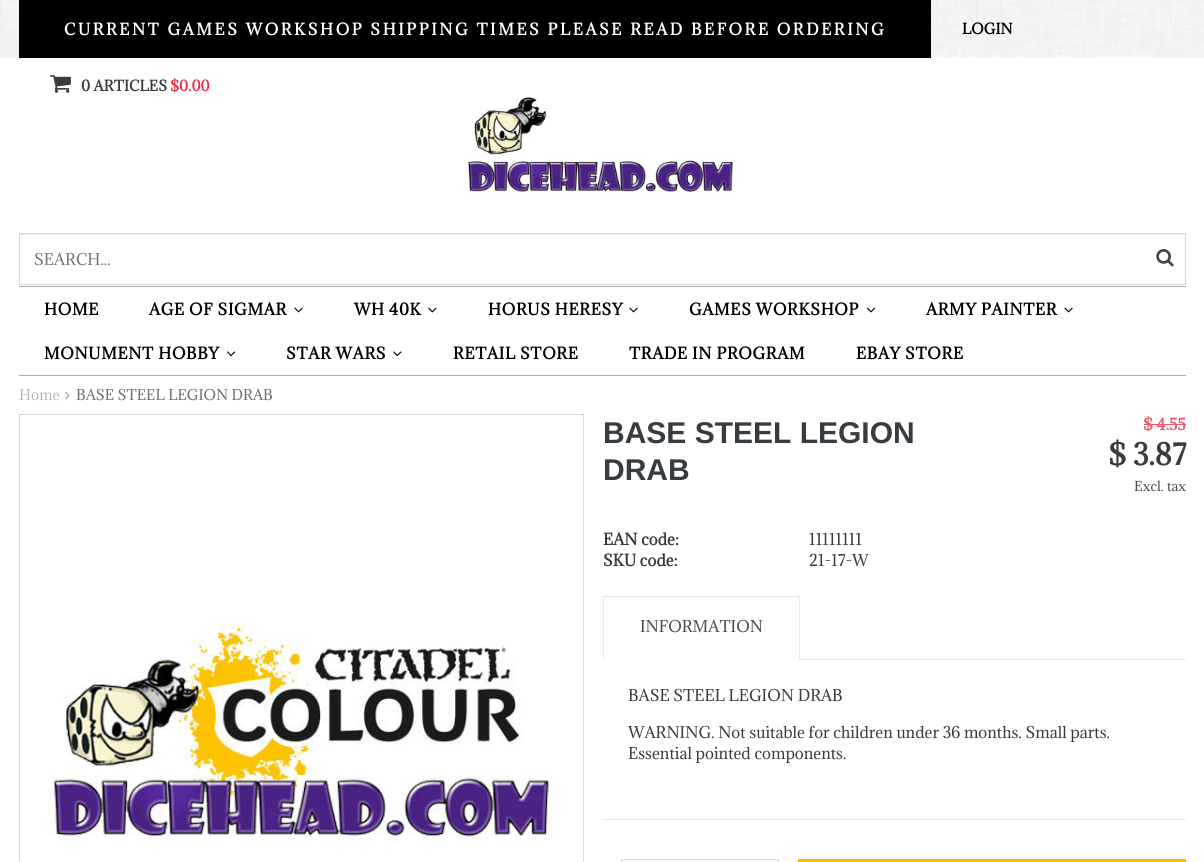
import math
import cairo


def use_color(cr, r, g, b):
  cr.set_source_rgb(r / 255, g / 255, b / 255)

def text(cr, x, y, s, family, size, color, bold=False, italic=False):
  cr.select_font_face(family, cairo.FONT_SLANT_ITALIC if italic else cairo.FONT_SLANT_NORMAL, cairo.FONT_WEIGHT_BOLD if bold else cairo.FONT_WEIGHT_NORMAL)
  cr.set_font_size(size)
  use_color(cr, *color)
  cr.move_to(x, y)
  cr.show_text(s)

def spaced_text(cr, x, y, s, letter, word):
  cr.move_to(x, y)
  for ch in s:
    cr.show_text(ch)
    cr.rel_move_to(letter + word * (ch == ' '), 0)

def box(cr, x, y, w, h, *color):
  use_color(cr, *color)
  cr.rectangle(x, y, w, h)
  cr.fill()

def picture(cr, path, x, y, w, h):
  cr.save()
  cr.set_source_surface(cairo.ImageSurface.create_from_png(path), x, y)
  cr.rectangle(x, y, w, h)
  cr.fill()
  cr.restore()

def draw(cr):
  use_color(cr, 255, 255, 255)
  cr.paint()
  picture(cr, "img_01.png", 0, 0, 1204, 58)
  box(cr, 19, 0, 912, 58, 0, 0, 0)
  picture(cr, "img_02.png", 50, 75, 21, 18)
  picture(cr, "img_03.png", 468, 97, 265, 95)
  box(cr, 20, 234, 1165, 1, 238, 238, 238)
  cr.rectangle(19.5, 233.5, 1166, 51)
  use_color(cr, 214, 214, 214)
  cr.set_line_width(1)
  cr.stroke()
  picture(cr, "img_04.png", 1156, 249, 18, 18)
  box(cr, 19, 286, 1167, 1, 175, 175, 175)
  box(cr, 19, 375, 1167, 1, 175, 175, 175)
  picture(cr, "img_05.png", 294, 307, 9, 6)
  picture(cr, "img_06.png", 428, 307, 9, 6)
  picture(cr, "img_05.png", 629, 307, 9, 6)
  picture(cr, "img_07.png", 866, 307, 10, 6)
  picture(cr, "img_05.png", 1064, 307, 9, 6)
  picture(cr, "img_08.png", 227, 351, 9, 6)
  picture(cr, "img_09.png", 393, 351, 9, 6)
  picture(cr, "img_10.png", 65, 391, 5, 9)
  cr.rectangle(19.5, 414.5, 564, 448)
  use_color(cr, 216, 216, 216)
  cr.stroke()
  picture(cr, "img_11.png", 50, 625, 502, 217)
  box(cr, 1144, 424, 42, 1, 238, 88, 109)
  box(cr, 800, 659, 386, 1, 234, 234, 234)
  box(cr, 603, 596, 197, 1, 234, 234, 234)
  box(cr, 799, 596, 1, 64, 234, 234, 234)
  box(cr, 603, 596, 1, 64, 234, 234, 234)
  box(cr, 603, 819, 583, 1, 234, 234, 234)
  cr.rectangle(621.5, 859.5, 157, 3)
  use_color(cr, 216, 216, 216)
  cr.stroke()
  box(cr, 798, 859, 388, 3, 255, 186, 0)
  cr.select_font_face("Adamina", cairo.FONT_SLANT_NORMAL, cairo.FONT_WEIGHT_BOLD)
  cr.set_font_size(15)
  use_color(cr, 255, 255, 255)
  spaced_text(cr, 64, 35, "CURRENT GAMES WORKSHOP SHIPPING TIMES PLEASE READ BEFORE ORDERING", 2.5, 0)
  text(cr, 962, 34, "LOGIN", "Adamina", 13.75, (0, 0, 0), bold=True)
  text(cr, 81, 91, "0 ARTICLES", "Adamina", 13.75, (54, 60, 63), bold=True)
  text(cr, 170, 91, "$0.00", "Adamina", 13.75, (234, 46, 73), bold=True)
  text(cr, 34, 265, "SEARCH...", "Adamina", 15, (117, 117, 117))
  cr.select_font_face("Adamina", cairo.FONT_SLANT_NORMAL, cairo.FONT_WEIGHT_BOLD)
  use_color(cr, 0, 0, 0)
  spaced_text(cr, 44, 315, "HOME", 0.6, 0)
  spaced_text(cr, 149, 315, "AGE OF SIGMAR", 0.6, 0)
  spaced_text(cr, 354, 315, "WH 40K", 0.6, 0)
  spaced_text(cr, 488, 315, "HORUS HERESY", 0.6, 0)
  spaced_text(cr, 689, 315, "GAMES WORKSHOP", 0.6, 0)
  spaced_text(cr, 926, 315, "ARMY PAINTER", 0.6, 0)
  spaced_text(cr, 44, 359, "MONUMENT HOBBY", 0.6, 0)
  spaced_text(cr, 286, 359, "STAR WARS", 0.6, 0)
  spaced_text(cr, 453, 359, "RETAIL STORE", 0.6, 0)
  spaced_text(cr, 629, 359, "TRADE IN PROGRAM", 0.6, 0)
  spaced_text(cr, 856, 359, "EBAY STORE", 0.6, 0)
  text(cr, 19, 400, "Home", "Adamina", 13.75, (181, 183, 184))
  text(cr, 76, 400, "BASE STEEL LEGION DRAB", "Adamina", 13.75, (107, 111, 113))
  text(cr, 603, 443, "BASE STEEL LEGION", "Liberation Sans", 30, (54, 60, 63), bold=True)
  text(cr, 603, 480, "DRAB", "Liberation Sans", 30, (54, 60, 63), bold=True)
  text(cr, 1143, 430, "$ 4.55", "Adamina", 15, (238, 88, 109), bold=True)
  text(cr, 1108, 465, "$ 3.87", "Adamina", 27.5, (54, 60, 63), bold=True)
  text(cr, 1134, 491, "Excl. tax", "Adamina", 12.75, (70, 75, 78))
  text(cr, 603, 545, "EAN code:", "Adamina", 15, (54, 60, 63), bold=True)
  text(cr, 809, 545, "11111111", "Adamina", 15, (54, 60, 63))
  text(cr, 603, 566, "SKU code:", "Adamina", 15, (54, 60, 63), bold=True)
  text(cr, 809, 566, "21-17-W", "Adamina", 15, (54, 60, 63))
  text(cr, 640, 632, "INFORMATION", "Adamina", 15, (70, 75, 78))
  text(cr, 628, 701, "BASE STEEL LEGION DRAB", "Adamina", 15, (54, 60, 63))
  text(cr, 628, 738, "WARNING. Not suitable for children under 36 months. Small parts.", "Adamina", 15, (54, 60, 63))
  text(cr, 628, 759, "Essential pointed components.", "Adamina", 15, (54, 60, 63))


surface = cairo.ImageSurface(cairo.FORMAT_RGB24, 1204, 862)
cr = cairo.Context(surface)
options = cairo.FontOptions()
options.set_hint_metrics(cairo.HINT_METRICS_OFF)
options.set_hint_style(cairo.HINT_STYLE_NONE)
cr.set_font_options(options)
cr.set_miter_limit(4)
draw(cr)
surface.write_to_png("out.png")
